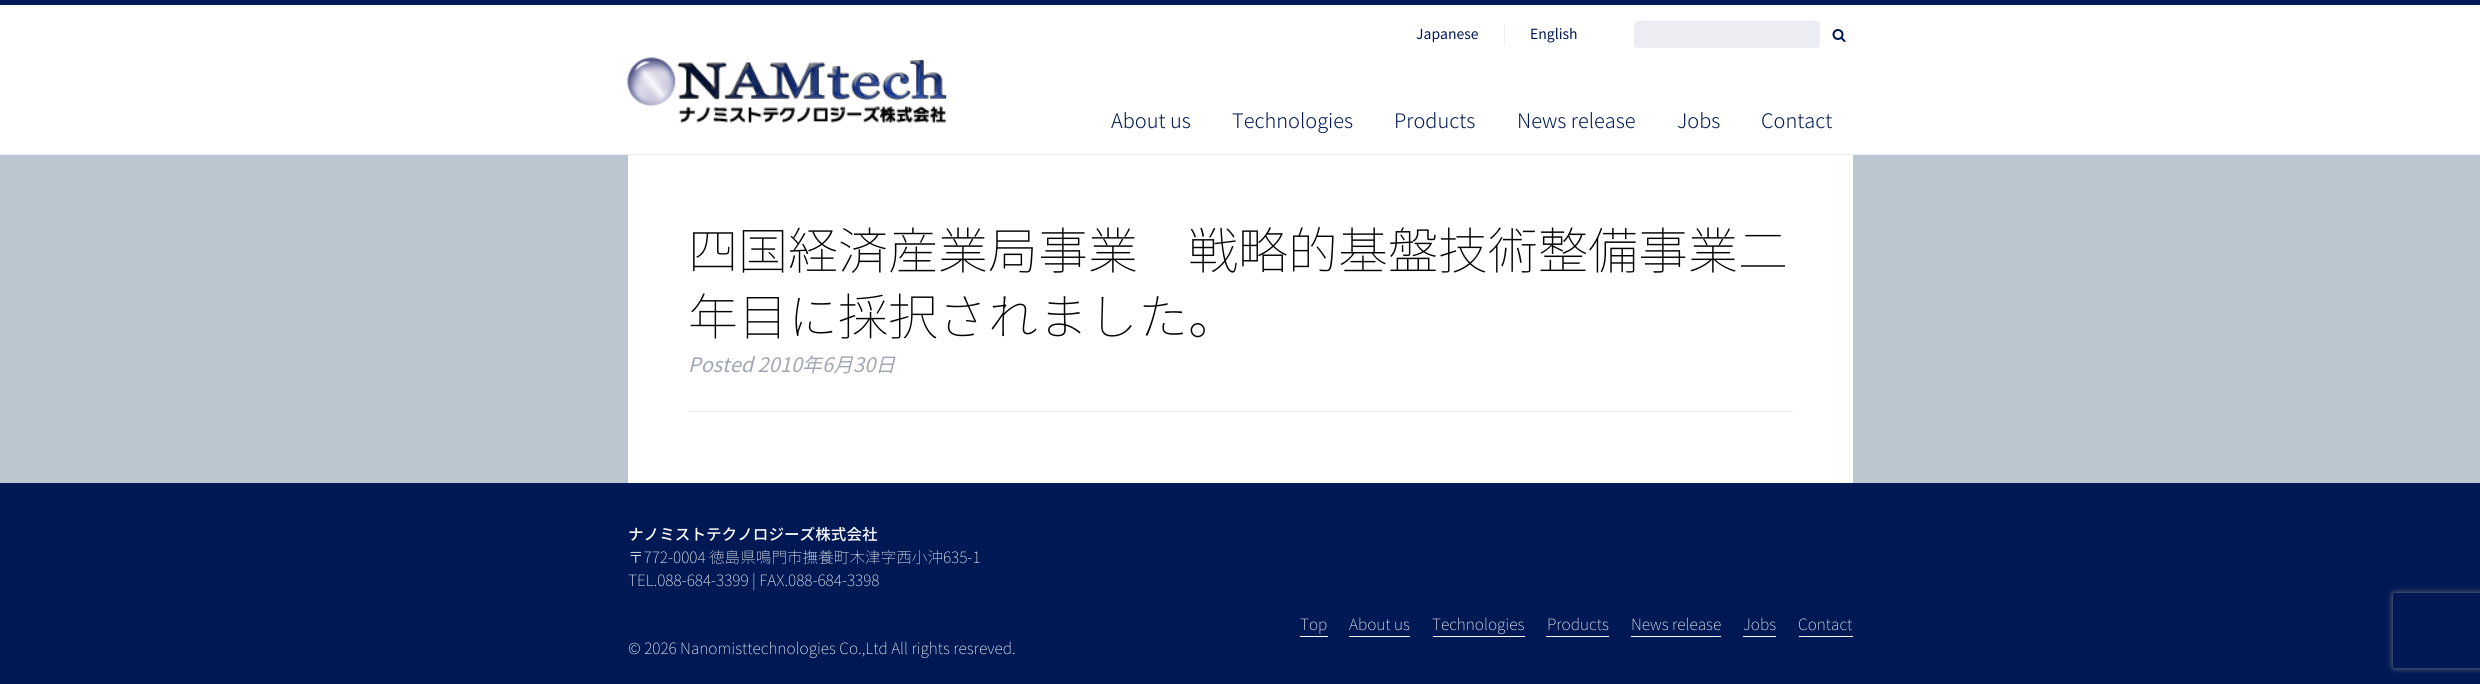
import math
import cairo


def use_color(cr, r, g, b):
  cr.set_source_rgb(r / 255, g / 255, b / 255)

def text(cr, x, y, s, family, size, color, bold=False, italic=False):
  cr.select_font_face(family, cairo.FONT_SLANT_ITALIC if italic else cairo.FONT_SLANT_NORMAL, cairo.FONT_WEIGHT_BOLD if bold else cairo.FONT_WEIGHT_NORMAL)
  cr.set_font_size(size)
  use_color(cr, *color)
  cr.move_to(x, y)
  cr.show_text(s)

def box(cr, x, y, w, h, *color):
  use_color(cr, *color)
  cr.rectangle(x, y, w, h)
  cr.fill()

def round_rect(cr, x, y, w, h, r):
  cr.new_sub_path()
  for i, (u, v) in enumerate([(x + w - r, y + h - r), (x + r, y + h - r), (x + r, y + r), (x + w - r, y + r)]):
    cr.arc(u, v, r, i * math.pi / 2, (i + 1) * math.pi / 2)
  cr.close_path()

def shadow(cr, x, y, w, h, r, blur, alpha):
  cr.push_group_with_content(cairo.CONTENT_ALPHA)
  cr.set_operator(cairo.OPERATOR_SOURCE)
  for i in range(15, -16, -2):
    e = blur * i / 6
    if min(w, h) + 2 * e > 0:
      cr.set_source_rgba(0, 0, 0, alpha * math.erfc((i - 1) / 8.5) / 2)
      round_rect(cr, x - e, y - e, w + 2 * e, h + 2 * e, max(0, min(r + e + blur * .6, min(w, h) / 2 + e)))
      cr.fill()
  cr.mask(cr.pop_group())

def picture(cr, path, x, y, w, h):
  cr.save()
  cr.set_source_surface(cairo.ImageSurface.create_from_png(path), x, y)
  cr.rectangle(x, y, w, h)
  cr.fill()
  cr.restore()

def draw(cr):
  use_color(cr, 0, 24, 84)
  cr.paint()
  box(cr, 0, 5, 2480, 149, 255, 255, 255)
  box(cr, 0, 154, 2480, 1, 235, 237, 242)
  box(cr, 1504, 24, 1, 21, 235, 237, 242)
  round_rect(cr, 1634, 21, 186, 27, 4)
  cr.fill()
  picture(cr, "img_01.png", 1832, 29, 14, 13)
  picture(cr, "img_02.png", 627, 57, 320, 66)
  box(cr, 0, 155, 2480, 328, 188, 198, 209)
  box(cr, 628, 155, 1225, 328, 255, 255, 255)
  box(cr, 688, 411, 1105, 1, 235, 237, 242)
  box(cr, 1300, 636, 28, 1, 255, 255, 255)
  box(cr, 1349, 636, 61, 1, 255, 255, 255)
  box(cr, 1433, 636, 92, 1, 255, 255, 255)
  box(cr, 1546, 636, 63, 1, 255, 255, 255)
  box(cr, 1631, 636, 90, 1, 255, 255, 255)
  box(cr, 1743, 636, 33, 1, 255, 255, 255)
  box(cr, 1799, 636, 54, 1, 255, 255, 255)
  cr.save()
  cr.set_fill_rule(cairo.FILL_RULE_EVEN_ODD)
  cr.new_path()
  cr.move_to(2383, 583)
  cr.line_to(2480, 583)
  cr.line_to(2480, 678)
  cr.line_to(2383, 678)
  cr.close_path()
  cr.move_to(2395.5, 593)
  cr.line_to(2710.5, 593)
  cr.curve_to(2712, 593, 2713, 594, 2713, 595.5)
  cr.line_to(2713, 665.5)
  cr.curve_to(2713, 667, 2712, 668, 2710.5, 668)
  cr.line_to(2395.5, 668)
  cr.curve_to(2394, 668, 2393, 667, 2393, 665.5)
  cr.line_to(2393, 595.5)
  cr.curve_to(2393, 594, 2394, 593, 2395.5, 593)
  cr.close_path()
  cr.clip()
  use_color(cr, 128, 128, 128)
  shadow(cr, 2393, 593, 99, 75, 2.5, 3, 1)
  cr.restore()
  text(cr, 1416, 39, "Japanese", "Noto Sans JP", 14, (0, 24, 84))
  text(cr, 1530, 39, "English", "Noto Sans JP", 14, (0, 24, 84))
  text(cr, 1111, 128, "About us", "Noto Sans JP Light", 20, (0, 24, 84))
  text(cr, 1232, 128, "Technologies", "Noto Sans JP Light", 20, (0, 24, 84))
  text(cr, 1394, 128, "Products", "Noto Sans JP Light", 20, (0, 24, 84))
  text(cr, 1517, 128, "News release", "Noto Sans JP Light", 20, (0, 24, 84))
  text(cr, 1677, 128, "Jobs", "Noto Sans JP Light", 20, (0, 24, 84))
  text(cr, 1761, 128, "Contact", "Noto Sans JP Light", 20, (0, 24, 84))
  text(cr, 688, 269, "四国経済産業局事業　戦略的基盤技術整備事業二", "Noto Sans JP Thin", 50, (1, 3, 5))
  text(cr, 688, 335, "年目に採択されました。", "Noto Sans JP Thin", 50, (1, 3, 5))
  text(cr, 688, 372, "Posted 2010年6月30日", "Noto Sans JP", 20, (159, 166, 180), italic=True)
  text(cr, 628, 540, "ナノミストテクノロジーズ株式会社", "Noto Sans JP Medium", 15.6, (255, 255, 255))
  text(cr, 628, 563, "〒772-0004 徳島県鳴門市撫養町木津字西小沖635-1", "Noto Sans JP Thin", 15.6, (255, 255, 255))
  text(cr, 628, 586, "TEL.088-684-3399 | FAX.088-684-3398", "Noto Sans JP Thin", 15.6, (255, 255, 255))
  text(cr, 1300, 630, "Top", "Noto Sans JP Thin", 15.6, (255, 255, 255))
  text(cr, 1349, 630, "About us", "Noto Sans JP Thin", 15.6, (255, 255, 255))
  text(cr, 1432, 630, "Technologies", "Noto Sans JP Thin", 15.6, (255, 255, 255))
  text(cr, 1547, 630, "Products", "Noto Sans JP Thin", 15.6, (255, 255, 255))
  text(cr, 1631, 630, "News release", "Noto Sans JP Thin", 15.6, (255, 255, 255))
  text(cr, 1743, 630, "Jobs", "Noto Sans JP Thin", 15.6, (255, 255, 255))
  text(cr, 1798, 630, "Contact", "Noto Sans JP Thin", 15.6, (255, 255, 255))
  text(cr, 628, 654, "© 2026 Nanomisttechnologies Co.,Ltd All rights resreved.", "Noto Sans JP Thin", 15.6, (255, 255, 255))


surface = cairo.ImageSurface(cairo.FORMAT_RGB24, 2480, 684)
cr = cairo.Context(surface)
options = cairo.FontOptions()
options.set_hint_metrics(cairo.HINT_METRICS_OFF)
options.set_hint_style(cairo.HINT_STYLE_NONE)
cr.set_font_options(options)
cr.set_miter_limit(4)
draw(cr)
surface.write_to_png("out.png")
